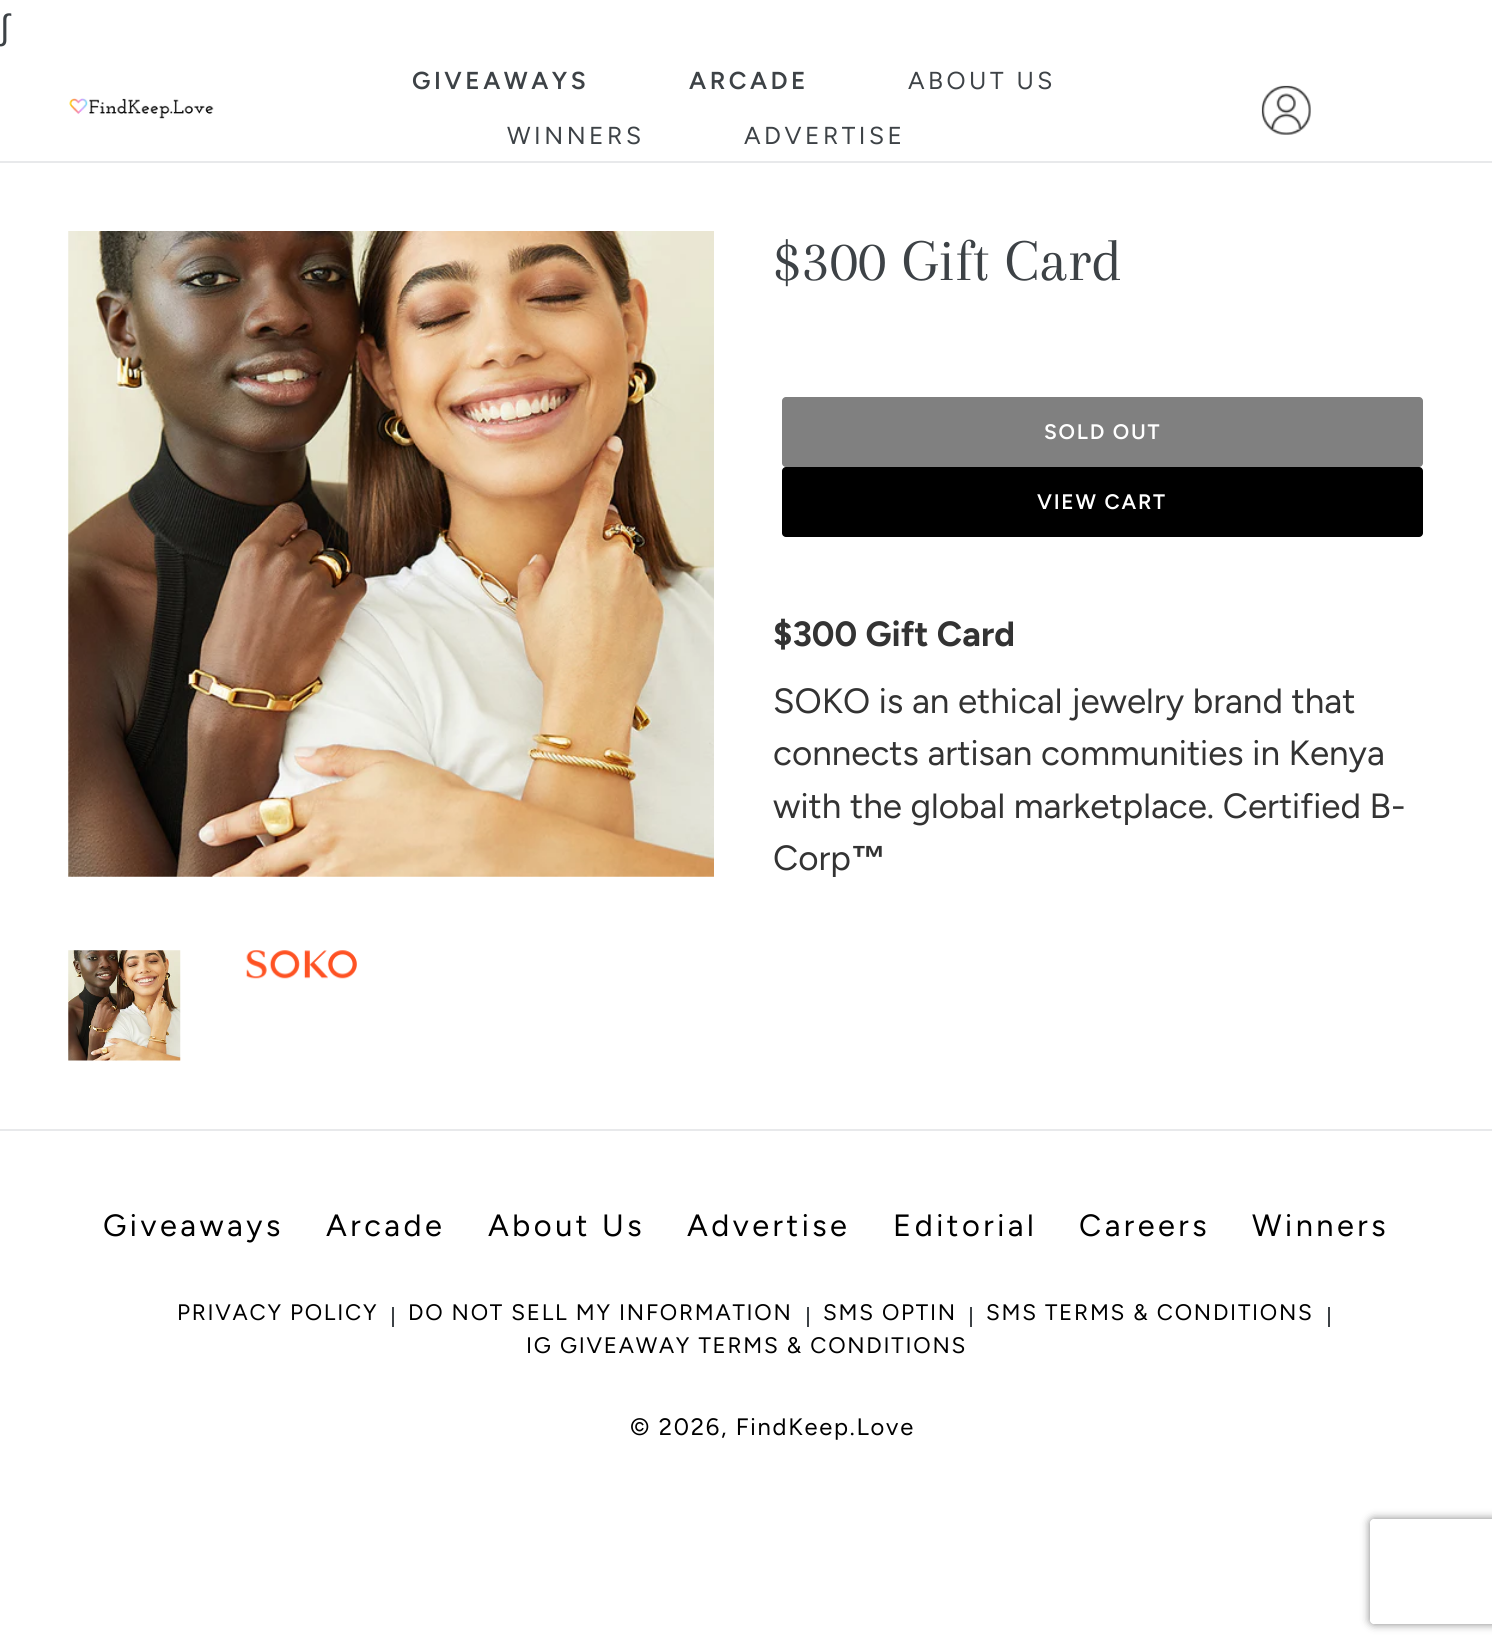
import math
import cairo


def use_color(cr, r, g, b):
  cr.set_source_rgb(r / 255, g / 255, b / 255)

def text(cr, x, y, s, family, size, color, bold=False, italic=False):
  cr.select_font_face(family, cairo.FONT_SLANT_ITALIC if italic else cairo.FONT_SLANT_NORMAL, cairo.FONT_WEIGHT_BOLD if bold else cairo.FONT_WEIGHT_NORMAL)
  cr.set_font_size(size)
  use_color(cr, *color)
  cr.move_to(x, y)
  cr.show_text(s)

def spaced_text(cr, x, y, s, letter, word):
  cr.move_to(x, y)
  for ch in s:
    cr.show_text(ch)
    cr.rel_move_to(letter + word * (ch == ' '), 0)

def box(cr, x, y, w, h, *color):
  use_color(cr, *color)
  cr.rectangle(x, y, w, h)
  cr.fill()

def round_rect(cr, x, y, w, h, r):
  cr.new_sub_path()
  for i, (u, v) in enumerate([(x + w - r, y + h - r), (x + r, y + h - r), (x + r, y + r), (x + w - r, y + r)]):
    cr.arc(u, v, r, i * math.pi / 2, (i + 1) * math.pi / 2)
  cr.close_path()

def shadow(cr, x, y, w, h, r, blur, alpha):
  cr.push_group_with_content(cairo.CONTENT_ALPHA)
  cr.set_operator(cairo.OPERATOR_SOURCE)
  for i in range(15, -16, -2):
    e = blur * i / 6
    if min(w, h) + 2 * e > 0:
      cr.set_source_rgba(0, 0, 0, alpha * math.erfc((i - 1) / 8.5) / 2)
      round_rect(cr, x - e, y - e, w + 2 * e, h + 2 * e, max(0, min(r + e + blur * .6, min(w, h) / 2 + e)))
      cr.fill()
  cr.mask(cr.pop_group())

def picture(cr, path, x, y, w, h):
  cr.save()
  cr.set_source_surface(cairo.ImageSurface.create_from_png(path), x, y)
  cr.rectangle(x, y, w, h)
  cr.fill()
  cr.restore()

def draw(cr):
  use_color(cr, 255, 255, 255)
  cr.paint()
  box(cr, 0, 161, 1492, 2, 232, 233, 235)
  picture(cr, "img_01.png", 69, 98, 145, 21)
  picture(cr, "img_02.png", 1261, 85, 50, 50)
  picture(cr, "img_03.png", 68, 231, 646, 646)
  picture(cr, "img_04.png", 68, 950, 113, 111)
  picture(cr, "img_05.png", 246, 950, 111, 29)
  use_color(cr, 128, 128, 128)
  round_rect(cr, 782, 397, 641, 70, 4)
  cr.fill()
  use_color(cr, 0, 0, 0)
  round_rect(cr, 782, 467, 641, 70, 4)
  cr.fill()
  box(cr, 0, 1129, 1492, 2, 232, 233, 235)
  box(cr, 392, 1307, 2, 20, 61, 66, 70)
  box(cr, 807, 1307, 2, 20, 61, 66, 70)
  box(cr, 970, 1307, 2, 20, 61, 66, 70)
  box(cr, 1328, 1307, 2, 20, 61, 66, 70)
  cr.save()
  cr.set_fill_rule(cairo.FILL_RULE_EVEN_ODD)
  cr.new_path()
  cr.move_to(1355, 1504)
  cr.line_to(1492, 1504)
  cr.line_to(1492, 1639)
  cr.line_to(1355, 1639)
  cr.close_path()
  cr.move_to(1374, 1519)
  cr.line_to(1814, 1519)
  cr.curve_to(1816, 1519, 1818, 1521, 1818, 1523)
  cr.line_to(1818, 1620)
  cr.curve_to(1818, 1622, 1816, 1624, 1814, 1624)
  cr.line_to(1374, 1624)
  cr.curve_to(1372, 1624, 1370, 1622, 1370, 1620)
  cr.line_to(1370, 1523)
  cr.curve_to(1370, 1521, 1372, 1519, 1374, 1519)
  cr.close_path()
  cr.clip()
  use_color(cr, 128, 128, 128)
  shadow(cr, 1370, 1519, 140, 105, 4, 4.5, 1)
  cr.restore()
  text(cr, 0, 39, "∫", "Liberation Sans", 35, (61, 66, 70))
  cr.select_font_face("Figtree SemiBold")
  cr.set_font_size(24.5)
  spaced_text(cr, 412, 89, "GIVEAWAYS", 3.5, 0)
  spaced_text(cr, 689, 89, "ARCADE", 3.5, 0)
  cr.select_font_face("Figtree")
  spaced_text(cr, 908, 89, "ABOUT US", 3.5, 0)
  spaced_text(cr, 507, 144, "WINNERS", 3.5, 0)
  spaced_text(cr, 744, 144, "ADVERTISE", 3.5, 0)
  text(cr, 773, 280, "$300 Gift Card", "Arapey", 61.25, (61, 66, 70))
  cr.select_font_face("Figtree SemiBold")
  cr.set_font_size(21)
  use_color(cr, 255, 255, 255)
  spaced_text(cr, 1044, 439, "SOLD OUT", 1.75, 0)
  spaced_text(cr, 1037, 509, "VIEW CART", 1.75, 0)
  text(cr, 773, 646, "$300 Gift Card", "Figtree", 35, (51, 51, 51), bold=True)
  text(cr, 773, 713, "SOKO is an ethical jewelry brand that", "Figtree", 35, (51, 51, 51))
  text(cr, 773, 765, "connects artisan communities in Kenya", "Figtree", 35, (51, 51, 51))
  text(cr, 773, 818, "with the global marketplace. Certified B-", "Figtree", 35, (51, 51, 51))
  text(cr, 773, 870, "Corp", "Figtree", 35, (51, 51, 51))
  text(cr, 851, 870, "™", "Liberation Sans", 35, (51, 51, 51), bold=True)
  cr.select_font_face("Figtree")
  cr.set_font_size(30.75)
  use_color(cr, 0, 0, 0)
  spaced_text(cr, 103, 1236, "Giveaways", 3.5, 0)
  spaced_text(cr, 326, 1236, "Arcade", 3.5, 0)
  spaced_text(cr, 488, 1236, "About Us", 3.5, 0)
  spaced_text(cr, 687, 1236, "Advertise", 3.5, 0)
  spaced_text(cr, 893, 1236, "Editorial", 3.5, 0)
  spaced_text(cr, 1079, 1236, "Careers", 3.5, 0)
  spaced_text(cr, 1252, 1236, "Winners", 3.5, 0)
  cr.set_font_size(22.4)
  spaced_text(cr, 177, 1320, "PRIVACY POLICY", 1.75, 0)
  spaced_text(cr, 408, 1320, "DO NOT SELL MY INFORMATION", 1.75, 0)
  spaced_text(cr, 823, 1320, "SMS OPTIN", 1.75, 0)
  spaced_text(cr, 986, 1320, "SMS TERMS & CONDITIONS", 1.75, 0)
  spaced_text(cr, 526, 1353, "IG GIVEAWAY TERMS & CONDITIONS", 1.75, 0)
  cr.set_font_size(23.75)
  spaced_text(cr, 630, 1435, "© 2026, FindKeep.Love", 1.75, 0)


surface = cairo.ImageSurface(cairo.FORMAT_RGB24, 1492, 1647)
cr = cairo.Context(surface)
options = cairo.FontOptions()
options.set_hint_metrics(cairo.HINT_METRICS_OFF)
options.set_hint_style(cairo.HINT_STYLE_NONE)
cr.set_font_options(options)
cr.set_miter_limit(4)
draw(cr)
surface.write_to_png("out.png")
